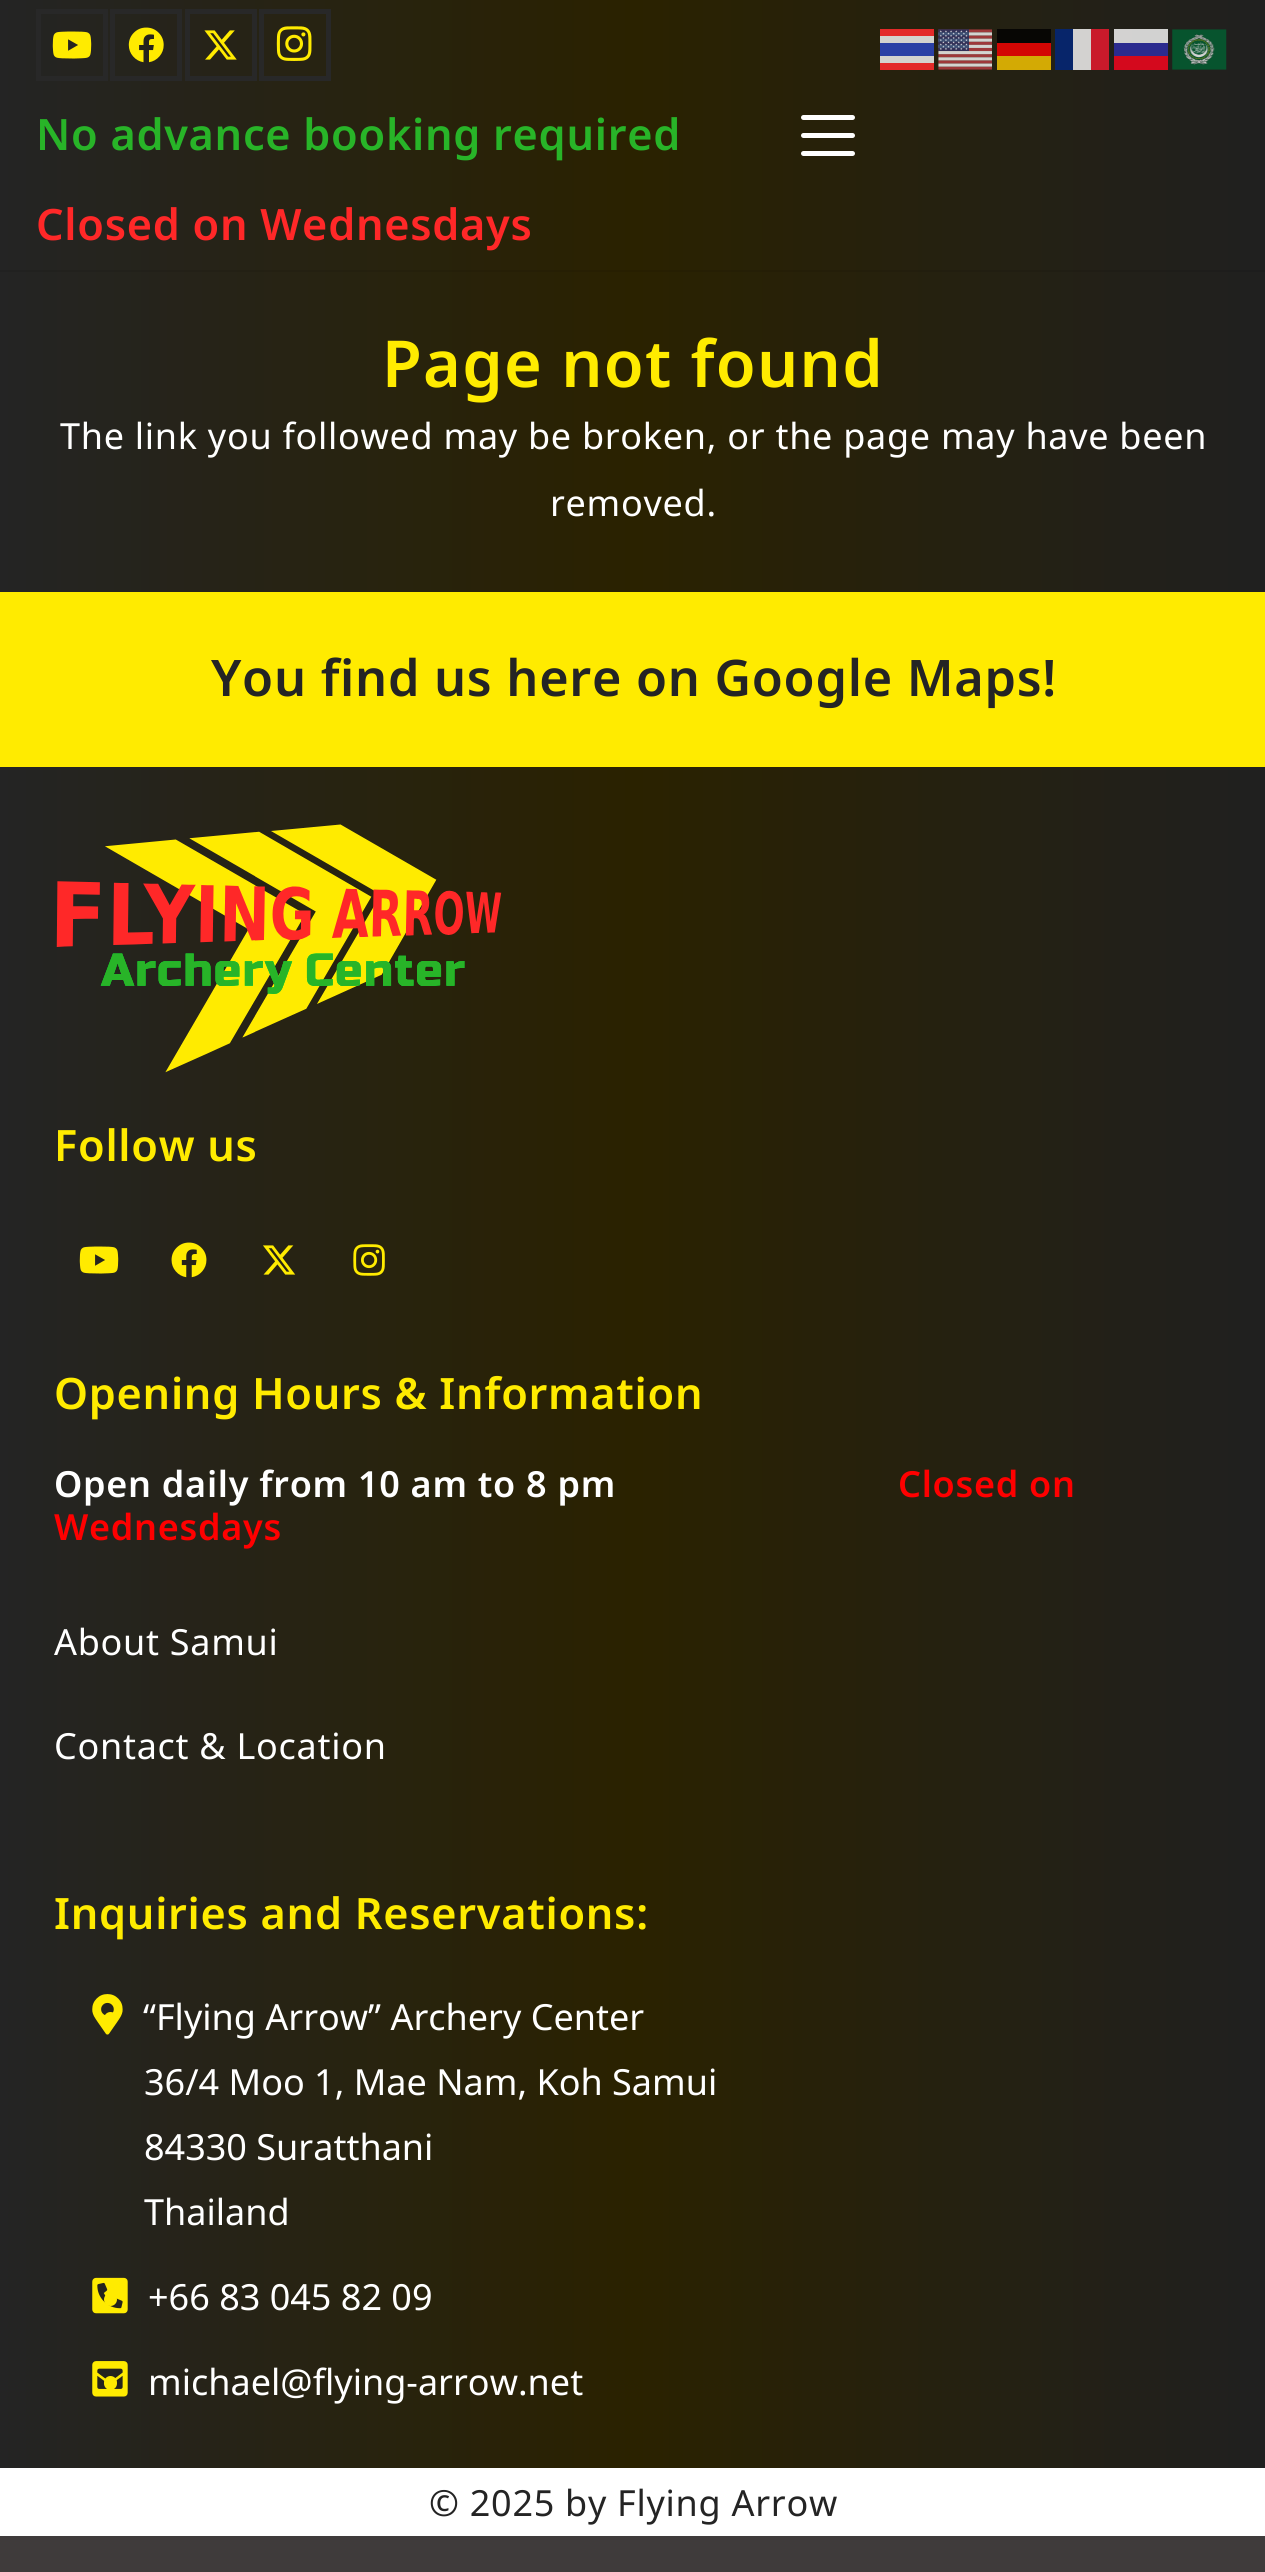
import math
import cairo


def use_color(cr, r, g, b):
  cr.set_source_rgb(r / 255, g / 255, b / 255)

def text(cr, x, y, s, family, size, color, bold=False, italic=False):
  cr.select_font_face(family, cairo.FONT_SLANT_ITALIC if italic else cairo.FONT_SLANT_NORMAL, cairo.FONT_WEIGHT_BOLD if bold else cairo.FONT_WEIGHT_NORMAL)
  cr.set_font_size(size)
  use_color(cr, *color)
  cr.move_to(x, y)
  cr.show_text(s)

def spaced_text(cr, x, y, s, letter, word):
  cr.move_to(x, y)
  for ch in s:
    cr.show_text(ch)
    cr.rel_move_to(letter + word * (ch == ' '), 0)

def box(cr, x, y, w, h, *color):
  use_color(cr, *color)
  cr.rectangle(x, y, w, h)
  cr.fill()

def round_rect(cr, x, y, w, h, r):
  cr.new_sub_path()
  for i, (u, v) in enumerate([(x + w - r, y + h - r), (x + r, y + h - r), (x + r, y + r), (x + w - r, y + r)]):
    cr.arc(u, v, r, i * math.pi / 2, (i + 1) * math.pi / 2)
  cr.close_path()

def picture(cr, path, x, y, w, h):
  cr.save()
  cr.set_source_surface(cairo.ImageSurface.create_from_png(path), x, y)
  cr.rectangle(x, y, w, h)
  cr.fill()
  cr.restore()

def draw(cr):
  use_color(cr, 63, 59, 59)
  cr.paint()
  gradient = cairo.LinearGradient(0, 296, 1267, 296)
  gradient.add_color_stop_rgba(0, 0.141, 0.141, 0.141, 1)
  gradient.add_color_stop_rgba(0.5, 0.165, 0.133, 0, 1)
  gradient.add_color_stop_rgba(1, 0.125, 0.125, 0.125, 1)
  cr.set_source(gradient)
  cr.rectangle(0, 0, 1265, 592)
  cr.fill()
  gradient = cairo.LinearGradient(0, 296, 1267, 296)
  gradient.add_color_stop_rgba(0, 0.827, 0.827, 0.827, 1)
  gradient.add_color_stop_rgba(0.5, 0.831, 0.827, 0.8, 1)
  gradient.add_color_stop_rgba(1, 0.824, 0.824, 0.824, 1)
  cr.set_source(gradient)
  cr.rectangle(1114, 29, 54, 14)
  cr.fill()
  cr.rectangle(1073, 29, 18, 41)
  cr.fill()
  gradient = cairo.LinearGradient(0, 296, 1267, 296)
  gradient.add_color_stop_rgba(0, 0.827, 0.027, 0.027, 1)
  gradient.add_color_stop_rgba(0.5, 0.831, 0.027, 0, 1)
  gradient.add_color_stop_rgba(1, 0.824, 0.024, 0.024, 1)
  cr.set_source(gradient)
  cr.rectangle(997, 43, 54, 13)
  cr.fill()
  gradient = cairo.LinearGradient(0, 296, 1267, 296)
  gradient.add_color_stop_rgba(0, 0.027, 0.027, 0.027, 1)
  gradient.add_color_stop_rgba(0.5, 0.031, 0.027, 0, 1)
  gradient.add_color_stop_rgba(1, 0.024, 0.024, 0.024, 1)
  cr.set_source(gradient)
  cr.rectangle(997, 29, 54, 14)
  cr.fill()
  gradient = cairo.LinearGradient(0, 296, 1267, 296)
  gradient.add_color_stop_rgba(0, 0.827, 0.667, 0.027, 1)
  gradient.add_color_stop_rgba(0.5, 0.831, 0.667, 0, 1)
  gradient.add_color_stop_rgba(1, 0.824, 0.667, 0.024, 1)
  cr.set_source(gradient)
  cr.rectangle(997, 56, 54, 14)
  cr.fill()
  gradient = cairo.LinearGradient(0, 296, 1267, 296)
  gradient.add_color_stop_rgba(0, 0.827, 0.827, 0.827, 1)
  gradient.add_color_stop_rgba(0.5, 0.831, 0.827, 0.8, 1)
  gradient.add_color_stop_rgba(1, 0.824, 0.824, 0.824, 1)
  cr.set_source(gradient)
  cr.rectangle(880, 36, 54, 27)
  cr.fill()
  cr.rectangle(38.5, 11.5, 67, 67)
  use_color(cr, 40, 40, 40)
  cr.set_line_width(5)
  cr.stroke()
  picture(cr, "img_01.png", 52, 31, 40, 28)
  cr.rectangle(112.5, 11.5, 67, 67)
  cr.stroke()
  picture(cr, "img_02.png", 128, 27, 36, 36)
  cr.rectangle(187.5, 11.5, 67, 67)
  cr.stroke()
  picture(cr, "img_03.png", 204, 30, 33, 30)
  cr.rectangle(261.5, 11.5, 67, 67)
  cr.stroke()
  picture(cr, "img_04.png", 276, 26, 36, 35)
  box(cr, 880, 43, 54, 13, 42, 64, 165)
  use_color(cr, 227, 42, 41)
  cr.set_fill_rule(cairo.FILL_RULE_EVEN_ODD)
  cr.new_path()
  cr.move_to(880, 29)
  cr.line_to(934, 29)
  cr.line_to(934, 36)
  cr.line_to(880, 36)
  cr.close_path()
  cr.move_to(880, 63)
  cr.line_to(934, 63)
  cr.line_to(934, 70)
  cr.line_to(880, 70)
  cr.close_path()
  cr.fill()
  picture(cr, "img_05.png", 938, 29, 54, 41)
  box(cr, 1055, 29, 18, 41, 7, 37, 106)
  box(cr, 1091, 29, 18, 41, 201, 26, 43)
  picture(cr, "img_06.png", 1172, 29, 55, 41)
  box(cr, 1114, 43, 54, 13, 43, 43, 143)
  box(cr, 1114, 56, 54, 14, 212, 9, 29)
  use_color(cr, 255, 255, 255)
  round_rect(cr, 801, 133, 54, 5, 2.5)
  cr.fill()
  round_rect(cr, 801, 115, 54, 5, 2.5)
  cr.fill()
  round_rect(cr, 801, 151, 54, 5, 2.5)
  cr.fill()
  cr.set_source_rgba(0, 0, 0, 0.08)
  cr.set_fill_rule(cairo.FILL_RULE_WINDING)
  cr.new_path()
  cr.move_to(0, 270)
  cr.line_to(0, 272)
  cr.line_to(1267, 272)
  cr.line_to(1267, 182)
  cr.line_to(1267, 270)
  cr.close_path()
  cr.fill()
  gradient = cairo.LinearGradient(0, 1564, 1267, 1564)
  gradient.add_color_stop_rgba(0, 0.141, 0.141, 0.141, 1)
  gradient.add_color_stop_rgba(0.5, 0.165, 0.133, 0, 1)
  gradient.add_color_stop_rgba(1, 0.125, 0.125, 0.125, 1)
  cr.set_source(gradient)
  cr.rectangle(0, 767, 1265, 1701)
  cr.fill()
  box(cr, 0, 592, 1265, 175, 255, 235, 0)
  picture(cr, "img_07.png", 56, 824, 446, 249)
  picture(cr, "img_08.png", 79, 1246, 40, 28)
  picture(cr, "img_09.png", 171, 1242, 36, 36)
  picture(cr, "img_10.png", 263, 1245, 33, 30)
  picture(cr, "img_11.png", 353, 1244, 32, 32)
  cr.arc(110.5, 2018.5, 6.5, 0, 2 * math.pi)
  cr.fill()
  picture(cr, "img_12.png", 92, 1994, 31, 41)
  cr.arc(110.5, 2299.5, 6.5, 0, 2 * math.pi)
  cr.fill()
  picture(cr, "img_13.png", 92, 2277, 36, 37)
  round_rect(cr, 104, 2376, 13, 14, 6.5)
  cr.fill()
  picture(cr, "img_14.png", 92, 2361, 36, 36)
  box(cr, 0, 2468, 1265, 68, 255, 255, 255)
  cr.select_font_face("Noto Sans SemiBold")
  cr.set_font_size(43.25)
  use_color(cr, 40, 180, 40)
  spaced_text(cr, 36, 150, "No advance booking required", 0.72, 0)
  use_color(cr, 255, 40, 40)
  spaced_text(cr, 36, 240, "Closed on Wednesdays", 0.72, 0)
  cr.set_font_size(64.75)
  use_color(cr, 255, 235, 0)
  spaced_text(cr, 382, 387, "Page not found", 1.25, 0)
  cr.select_font_face("Noto Sans")
  cr.set_font_size(36)
  use_color(cr, 255, 255, 255)
  spaced_text(cr, 60, 449, "The link you followed may be broken, or the page may have been", 0.72, 0)
  spaced_text(cr, 550, 516, "removed.", 0.72, 0)
  cr.select_font_face("Noto Sans SemiBold")
  cr.set_font_size(50.4)
  use_color(cr, 36, 36, 36)
  spaced_text(cr, 211, 696, "You find us here on Google Maps!", 0.72, 0)
  cr.set_font_size(43.25)
  use_color(cr, 255, 235, 0)
  spaced_text(cr, 54, 1161, "Follow us", 0.72, 0)
  spaced_text(cr, 54, 1409, "Opening Hours & Information", 0.72, 0)
  cr.set_font_size(36)
  use_color(cr, 255, 255, 255)
  spaced_text(cr, 54, 1497, "Open daily from 10 am to 8 pm", 0.72, 0)
  use_color(cr, 255, 0, 0)
  spaced_text(cr, 898, 1497, "Closed on", 0.72, 0)
  spaced_text(cr, 54, 1540, "Wednesdays", 0.72, 0)
  cr.select_font_face("Noto Sans")
  use_color(cr, 255, 255, 255)
  spaced_text(cr, 54, 1655, "About Samui", 0.72, 0)
  spaced_text(cr, 54, 1759, "Contact & Location", 0.72, 0)
  cr.select_font_face("Noto Sans SemiBold")
  cr.set_font_size(43.25)
  use_color(cr, 255, 235, 0)
  spaced_text(cr, 54, 1929, "Inquiries and Reservations:", 0.72, 0)
  text(cr, 143, 2030, "“Flying Arrow” Archery Center", "Noto Sans", 36, (255, 255, 255))
  text(cr, 144, 2095, "36/4 Moo 1, Mae Nam, Koh Samui", "Noto Sans", 36, (255, 255, 255))
  text(cr, 144, 2160, "84330 Suratthani", "Noto Sans", 36, (255, 255, 255))
  text(cr, 144, 2225, "Thailand", "Noto Sans", 36, (255, 255, 255))
  text(cr, 148, 2310, "+66 83 045 82 09", "Noto Sans", 36, (255, 255, 255))
  text(cr, 148, 2395, "michael@flying-arrow.net", "Noto Sans", 36, (255, 255, 255))
  use_color(cr, 36, 36, 36)
  spaced_text(cr, 429, 2516, "© 2025 by Flying Arrow", 0.72, 0)


surface = cairo.ImageSurface(cairo.FORMAT_RGB24, 1265, 2572)
cr = cairo.Context(surface)
options = cairo.FontOptions()
options.set_hint_metrics(cairo.HINT_METRICS_OFF)
options.set_hint_style(cairo.HINT_STYLE_NONE)
cr.set_font_options(options)
cr.set_miter_limit(4)
draw(cr)
surface.write_to_png("out.png")
